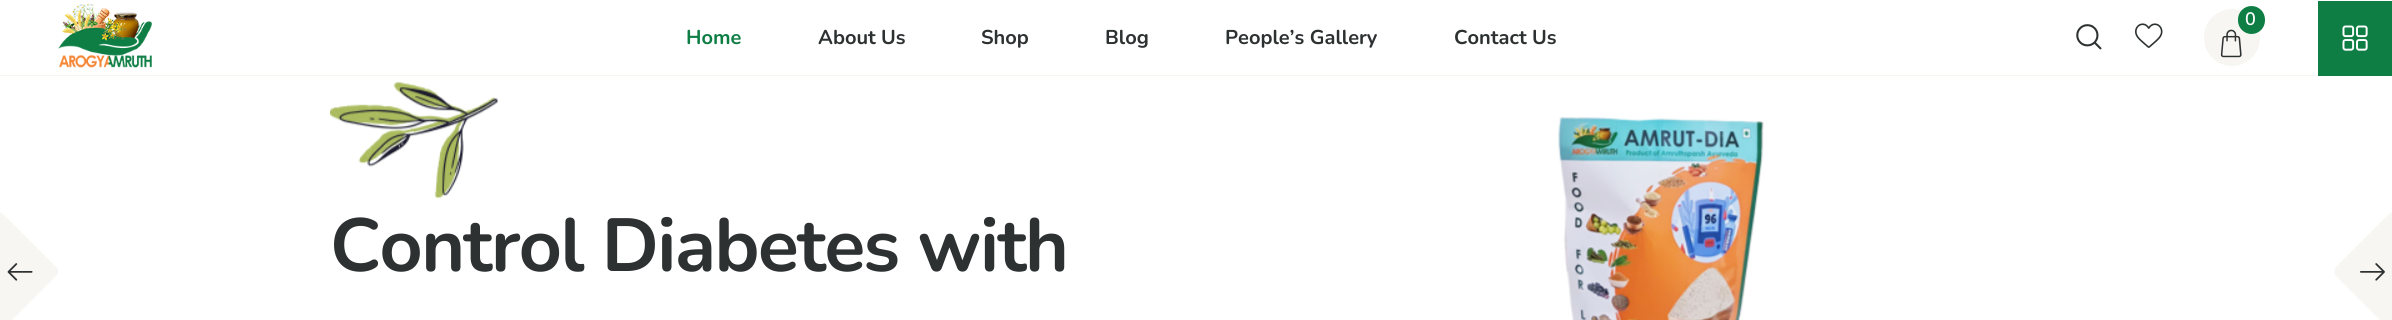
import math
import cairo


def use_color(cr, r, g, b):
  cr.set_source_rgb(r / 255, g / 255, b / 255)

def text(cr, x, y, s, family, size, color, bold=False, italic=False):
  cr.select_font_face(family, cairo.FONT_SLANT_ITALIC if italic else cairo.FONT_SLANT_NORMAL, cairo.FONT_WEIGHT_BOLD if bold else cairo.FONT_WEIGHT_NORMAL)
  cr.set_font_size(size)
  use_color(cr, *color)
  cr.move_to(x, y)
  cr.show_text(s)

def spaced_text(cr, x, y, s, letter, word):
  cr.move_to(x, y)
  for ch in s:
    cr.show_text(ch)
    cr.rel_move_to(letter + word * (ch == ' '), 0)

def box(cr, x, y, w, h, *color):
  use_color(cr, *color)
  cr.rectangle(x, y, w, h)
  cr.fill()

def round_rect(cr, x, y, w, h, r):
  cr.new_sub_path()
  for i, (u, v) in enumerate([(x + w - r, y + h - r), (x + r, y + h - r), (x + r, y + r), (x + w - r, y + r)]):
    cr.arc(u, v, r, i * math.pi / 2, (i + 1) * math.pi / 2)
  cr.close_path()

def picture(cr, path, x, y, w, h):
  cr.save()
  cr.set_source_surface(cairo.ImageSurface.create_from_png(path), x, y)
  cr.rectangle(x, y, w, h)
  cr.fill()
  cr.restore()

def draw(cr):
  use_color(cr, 255, 255, 255)
  cr.paint()
  box(cr, 0, 75, 2318, 1, 247, 246, 241)
  picture(cr, "img_01.png", 58, 3, 94, 65)
  use_color(cr, 247, 246, 242)
  round_rect(cr, 2204, 9, 56, 57, 28)
  cr.fill()
  picture(cr, "img_02.png", 2220, 29, 22, 29)
  use_color(cr, 14, 126, 68)
  round_rect(cr, 2238, 6, 27, 28, 13.5)
  cr.fill()
  box(cr, 2318, 1, 74, 75, 14, 126, 68)
  picture(cr, "img_03.png", 2342, 25, 26, 26)
  picture(cr, "img_04.png", 2076, 24, 26, 26)
  picture(cr, "img_05.png", 2135, 23, 28, 25)
  use_color(cr, 247, 246, 242)
  cr.new_path()
  cr.move_to(3, 214)
  cr.line_to(56, 267)
  cr.curve_to(59, 270, 59, 274, 56, 276)
  cr.line_to(3, 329)
  cr.curve_to(1, 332, -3, 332, -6, 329)
  cr.line_to(-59, 276)
  cr.curve_to(-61, 274, -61, 270, -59, 267)
  cr.line_to(-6, 214)
  cr.curve_to(-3, 212, 1, 212, 3, 214)
  cr.close_path()
  cr.fill()
  picture(cr, "img_06.png", 7, 263, 26, 18)
  picture(cr, "img_07.png", 330, 82, 168, 117)
  picture(cr, "img_08.png", 1558, 117, 206, 203)
  cr.new_path()
  cr.move_to(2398, 214)
  cr.line_to(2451, 267)
  cr.curve_to(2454, 270, 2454, 274, 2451, 276)
  cr.line_to(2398, 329)
  cr.curve_to(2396, 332, 2392, 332, 2389, 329)
  cr.line_to(2336, 276)
  cr.curve_to(2334, 274, 2334, 270, 2336, 267)
  cr.line_to(2389, 214)
  cr.curve_to(2392, 212, 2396, 212, 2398, 214)
  cr.close_path()
  cr.fill()
  picture(cr, "img_09.png", 2360, 263, 25, 18)
  text(cr, 2245, 25, "0", "Nunito SemiBold", 18, (255, 255, 255))
  text(cr, 686, 44, "Home", "Nunito", 20, (14, 126, 68), bold=True)
  text(cr, 818, 44, "About Us", "Nunito", 20, (45, 49, 49), bold=True)
  text(cr, 981, 44, "Shop", "Nunito", 20, (45, 49, 49), bold=True)
  text(cr, 1105, 44, "Blog", "Nunito", 20, (45, 49, 49), bold=True)
  text(cr, 1225, 44, "People’s Gallery", "Nunito", 20, (45, 49, 49), bold=True)
  text(cr, 1454, 44, "Contact Us", "Nunito", 20, (45, 49, 49), bold=True)
  cr.set_font_size(75)
  spaced_text(cr, 330, 271, "Control Diabetes with", -1.5, 0)


surface = cairo.ImageSurface(cairo.FORMAT_RGB24, 2392, 320)
cr = cairo.Context(surface)
options = cairo.FontOptions()
options.set_hint_metrics(cairo.HINT_METRICS_OFF)
options.set_hint_style(cairo.HINT_STYLE_NONE)
cr.set_font_options(options)
cr.set_miter_limit(4)
draw(cr)
surface.write_to_png("out.png")
